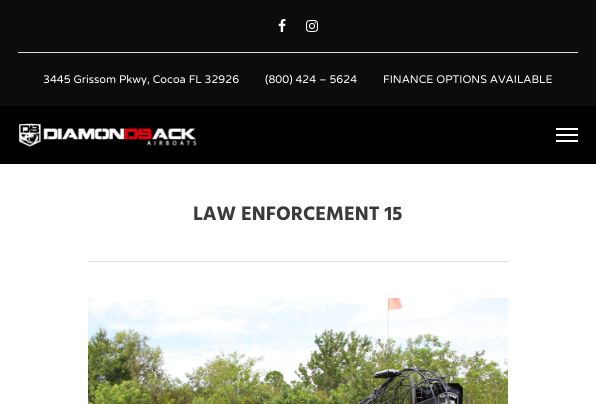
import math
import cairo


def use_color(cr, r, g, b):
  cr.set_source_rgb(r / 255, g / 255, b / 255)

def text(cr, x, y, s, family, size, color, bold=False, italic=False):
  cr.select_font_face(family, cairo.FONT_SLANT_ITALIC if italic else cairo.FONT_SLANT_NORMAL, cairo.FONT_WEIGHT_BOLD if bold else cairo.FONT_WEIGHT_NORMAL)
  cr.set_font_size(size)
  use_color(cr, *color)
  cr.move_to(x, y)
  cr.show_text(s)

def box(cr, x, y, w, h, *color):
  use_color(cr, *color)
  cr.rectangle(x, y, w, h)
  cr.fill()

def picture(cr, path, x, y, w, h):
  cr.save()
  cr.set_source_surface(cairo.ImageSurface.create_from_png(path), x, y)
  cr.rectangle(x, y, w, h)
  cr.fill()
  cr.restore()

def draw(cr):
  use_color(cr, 255, 255, 255)
  cr.paint()
  box(cr, 0, 0, 596, 106, 12, 12, 12)
  picture(cr, "img_01.png", 278, 19, 8, 13)
  picture(cr, "img_02.png", 306, 20, 12, 12)
  box(cr, 18, 52, 560, 1, 221, 221, 221)
  box(cr, 0, 106, 596, 58, 0, 0, 0)
  picture(cr, "img_03.png", 18, 123, 179, 24)
  box(cr, 556, 128, 22, 2, 255, 255, 255)
  box(cr, 556, 140, 22, 2, 255, 255, 255)
  box(cr, 556, 134, 22, 2, 255, 255, 255)
  box(cr, 88, 261, 420, 1, 221, 221, 221)
  picture(cr, "img_04.png", 88, 298, 420, 106)
  text(cr, 43, 83, "3445 Grissom Pkwy, Cocoa FL 32926", "Varela Round", 11, (255, 255, 255))
  text(cr, 265, 83, "(800) 424 – 5624", "Varela Round", 11, (255, 255, 255))
  text(cr, 383, 83, "FINANCE OPTIONS AVAILABLE", "Varela Round", 11, (255, 255, 255))
  text(cr, 193, 220, "LAW ENFORCEMENT 15", "Hind", 20, (58, 58, 58), bold=True)


surface = cairo.ImageSurface(cairo.FORMAT_RGB24, 596, 404)
cr = cairo.Context(surface)
options = cairo.FontOptions()
options.set_hint_metrics(cairo.HINT_METRICS_OFF)
options.set_hint_style(cairo.HINT_STYLE_NONE)
cr.set_font_options(options)
cr.set_miter_limit(4)
draw(cr)
surface.write_to_png("out.png")
